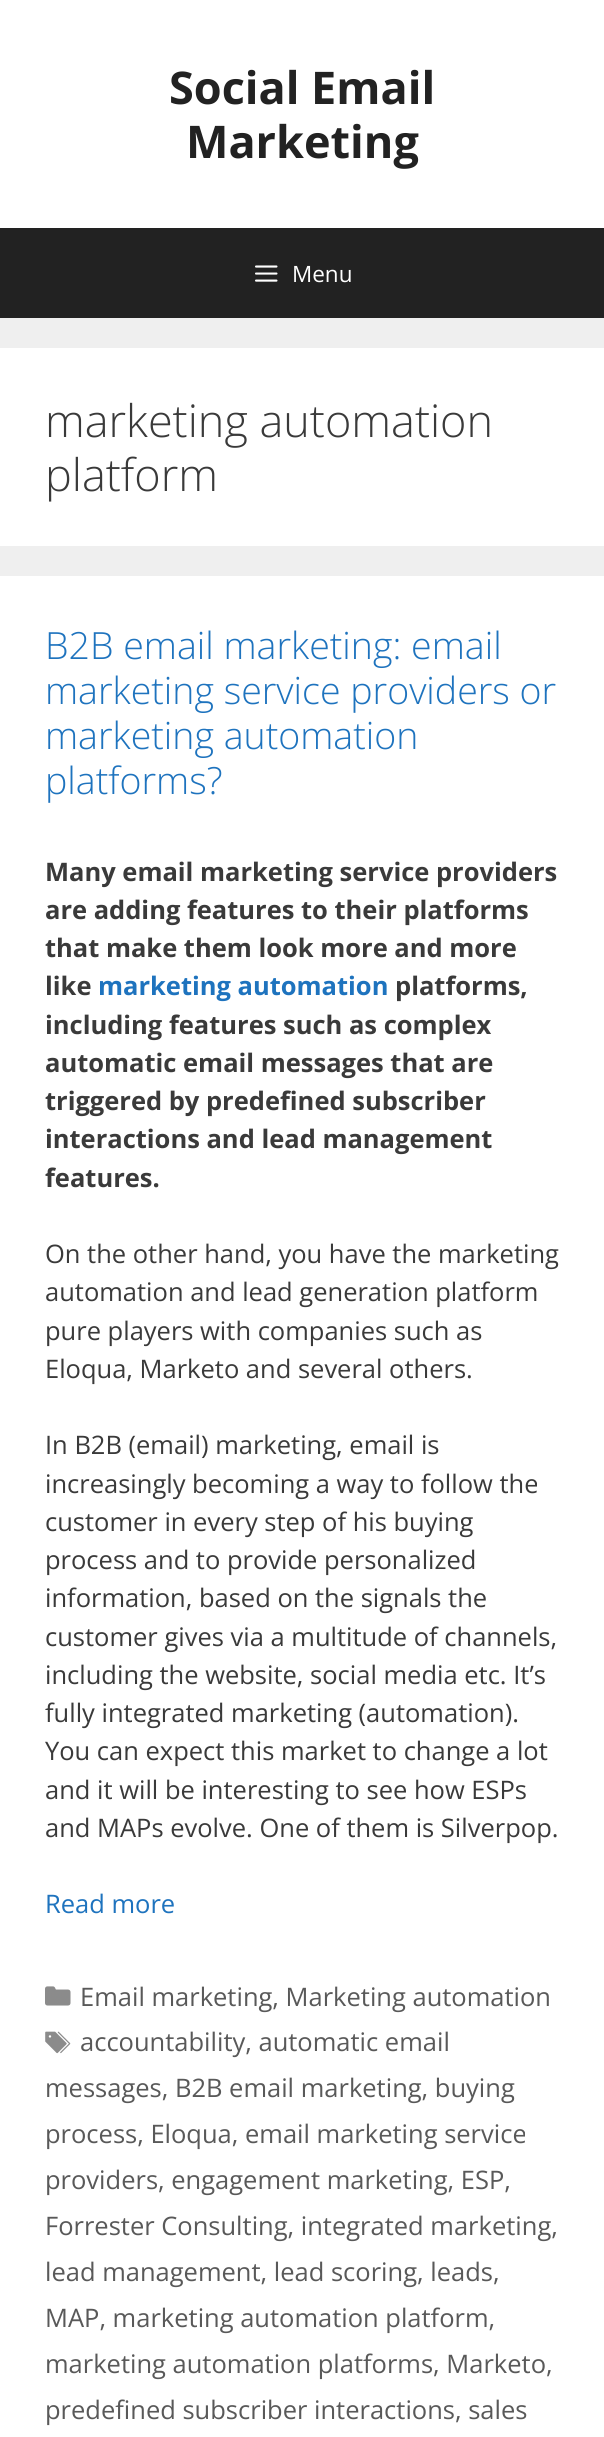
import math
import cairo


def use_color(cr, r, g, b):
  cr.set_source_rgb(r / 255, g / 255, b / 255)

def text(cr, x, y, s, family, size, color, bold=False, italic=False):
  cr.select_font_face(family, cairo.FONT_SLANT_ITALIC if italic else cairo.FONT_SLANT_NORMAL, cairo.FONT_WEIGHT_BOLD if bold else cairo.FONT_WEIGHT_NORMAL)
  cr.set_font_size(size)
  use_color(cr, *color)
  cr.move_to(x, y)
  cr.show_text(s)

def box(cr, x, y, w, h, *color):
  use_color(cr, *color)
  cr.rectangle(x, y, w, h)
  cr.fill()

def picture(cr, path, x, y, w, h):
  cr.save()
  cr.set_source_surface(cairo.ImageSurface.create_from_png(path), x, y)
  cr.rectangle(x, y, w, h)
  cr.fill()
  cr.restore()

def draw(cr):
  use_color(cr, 239, 239, 239)
  cr.paint()
  box(cr, 0, 0, 604, 228, 255, 255, 255)
  box(cr, 0, 228, 604, 90, 34, 34, 34)
  picture(cr, "img_01.png", 255, 265, 23, 17)
  box(cr, 0, 348, 604, 198, 255, 255, 255)
  box(cr, 0, 576, 604, 1861, 255, 255, 255)
  picture(cr, "img_02.png", 45, 1986, 26, 20)
  picture(cr, "img_03.png", 45, 2031, 26, 23)
  text(cr, 169, 104, "Social Email", "Open Sans", 45, (34, 34, 34), bold=True)
  text(cr, 186, 158, "Marketing", "Open Sans", 45, (34, 34, 34), bold=True)
  text(cr, 292, 282, "Menu", "Open Sans", 22.5, (255, 255, 255))
  text(cr, 45, 437, "marketing automation", "Open Sans Light", 45, (58, 58, 58))
  text(cr, 45, 491, "platform", "Open Sans Light", 45, (58, 58, 58))
  text(cr, 45, 659, "B2B email marketing: email", "Open Sans Light", 37.5, (30, 115, 190))
  text(cr, 45, 704, "marketing service providers or", "Open Sans Light", 37.5, (30, 115, 190))
  text(cr, 45, 749, "marketing automation", "Open Sans Light", 37.5, (30, 115, 190))
  text(cr, 45, 794, "platforms?", "Open Sans Light", 37.5, (30, 115, 190))
  text(cr, 45, 881, "Many email marketing service providers", "Open Sans", 25.5, (58, 58, 58), bold=True)
  text(cr, 45, 919, "are adding features to their platforms", "Open Sans", 25.5, (58, 58, 58), bold=True)
  text(cr, 45, 957, "that make them look more and more", "Open Sans", 25.5, (58, 58, 58), bold=True)
  text(cr, 45, 995, "like", "Open Sans", 25.5, (58, 58, 58), bold=True)
  text(cr, 98, 995, "marketing automation", "Open Sans", 25.5, (30, 115, 190), bold=True)
  text(cr, 395, 995, "platforms,", "Open Sans", 25.5, (58, 58, 58), bold=True)
  text(cr, 45, 1034, "including features such as complex", "Open Sans", 25.5, (58, 58, 58), bold=True)
  text(cr, 45, 1072, "automatic email messages that are", "Open Sans", 25.5, (58, 58, 58), bold=True)
  text(cr, 45, 1110, "triggered by predefined subscriber", "Open Sans", 25.5, (58, 58, 58), bold=True)
  text(cr, 45, 1148, "interactions and lead management", "Open Sans", 25.5, (58, 58, 58), bold=True)
  text(cr, 45, 1187, "features.", "Open Sans", 25.5, (58, 58, 58), bold=True)
  text(cr, 45, 1263, "On the other hand, you have the marketing", "Open Sans", 25.5, (58, 58, 58))
  text(cr, 45, 1301, "automation and lead generation platform", "Open Sans", 25.5, (58, 58, 58))
  text(cr, 45, 1340, "pure players with companies such as", "Open Sans", 25.5, (58, 58, 58))
  text(cr, 45, 1378, "Eloqua, Marketo and several others.", "Open Sans", 25.5, (58, 58, 58))
  text(cr, 45, 1454, "In B2B (email) marketing, email is", "Open Sans", 25.5, (58, 58, 58))
  text(cr, 45, 1493, "increasingly becoming a way to follow the", "Open Sans", 25.5, (58, 58, 58))
  text(cr, 45, 1531, "customer in every step of his buying", "Open Sans", 25.5, (58, 58, 58))
  text(cr, 45, 1569, "process and to provide personalized", "Open Sans", 25.5, (58, 58, 58))
  text(cr, 45, 1607, "information, based on the signals the", "Open Sans", 25.5, (58, 58, 58))
  text(cr, 45, 1646, "customer gives via a multitude of channels,", "Open Sans", 25.5, (58, 58, 58))
  text(cr, 45, 1684, "including the website, social media etc. It’s", "Open Sans", 25.5, (58, 58, 58))
  text(cr, 45, 1722, "fully integrated marketing (automation).", "Open Sans", 25.5, (58, 58, 58))
  text(cr, 45, 1760, "You can expect this market to change a lot", "Open Sans", 25.5, (58, 58, 58))
  text(cr, 45, 1799, "and it will be interesting to see how ESPs", "Open Sans", 25.5, (58, 58, 58))
  text(cr, 45, 1837, "and MAPs evolve. One of them is Silverpop.", "Open Sans", 25.5, (58, 58, 58))
  text(cr, 45, 1913, "Read more", "Open Sans", 25.5, (30, 115, 190))
  text(cr, 80, 2006, "Email marketing, Marketing automation", "Open Sans", 25.5, (89, 89, 89))
  text(cr, 80, 2051, "accountability, automatic email", "Open Sans", 25.5, (89, 89, 89))
  text(cr, 45, 2097, "messages, B2B email marketing, buying", "Open Sans", 25.5, (89, 89, 89))
  text(cr, 45, 2143, "process, Eloqua, email marketing service", "Open Sans", 25.5, (89, 89, 89))
  text(cr, 45, 2189, "providers, engagement marketing, ESP,", "Open Sans", 25.5, (89, 89, 89))
  text(cr, 45, 2235, "Forrester Consulting, integrated marketing,", "Open Sans", 25.5, (89, 89, 89))
  text(cr, 45, 2281, "lead management, lead scoring, leads,", "Open Sans", 25.5, (89, 89, 89))
  text(cr, 45, 2327, "MAP, marketing automation platform,", "Open Sans", 25.5, (89, 89, 89))
  text(cr, 45, 2373, "marketing automation platforms, Marketo,", "Open Sans", 25.5, (89, 89, 89))
  text(cr, 45, 2419, "predefined subscriber interactions, sales", "Open Sans", 25.5, (89, 89, 89))


surface = cairo.ImageSurface(cairo.FORMAT_RGB24, 604, 2437)
cr = cairo.Context(surface)
options = cairo.FontOptions()
options.set_hint_metrics(cairo.HINT_METRICS_OFF)
options.set_hint_style(cairo.HINT_STYLE_NONE)
cr.set_font_options(options)
cr.set_miter_limit(4)
draw(cr)
surface.write_to_png("out.png")
